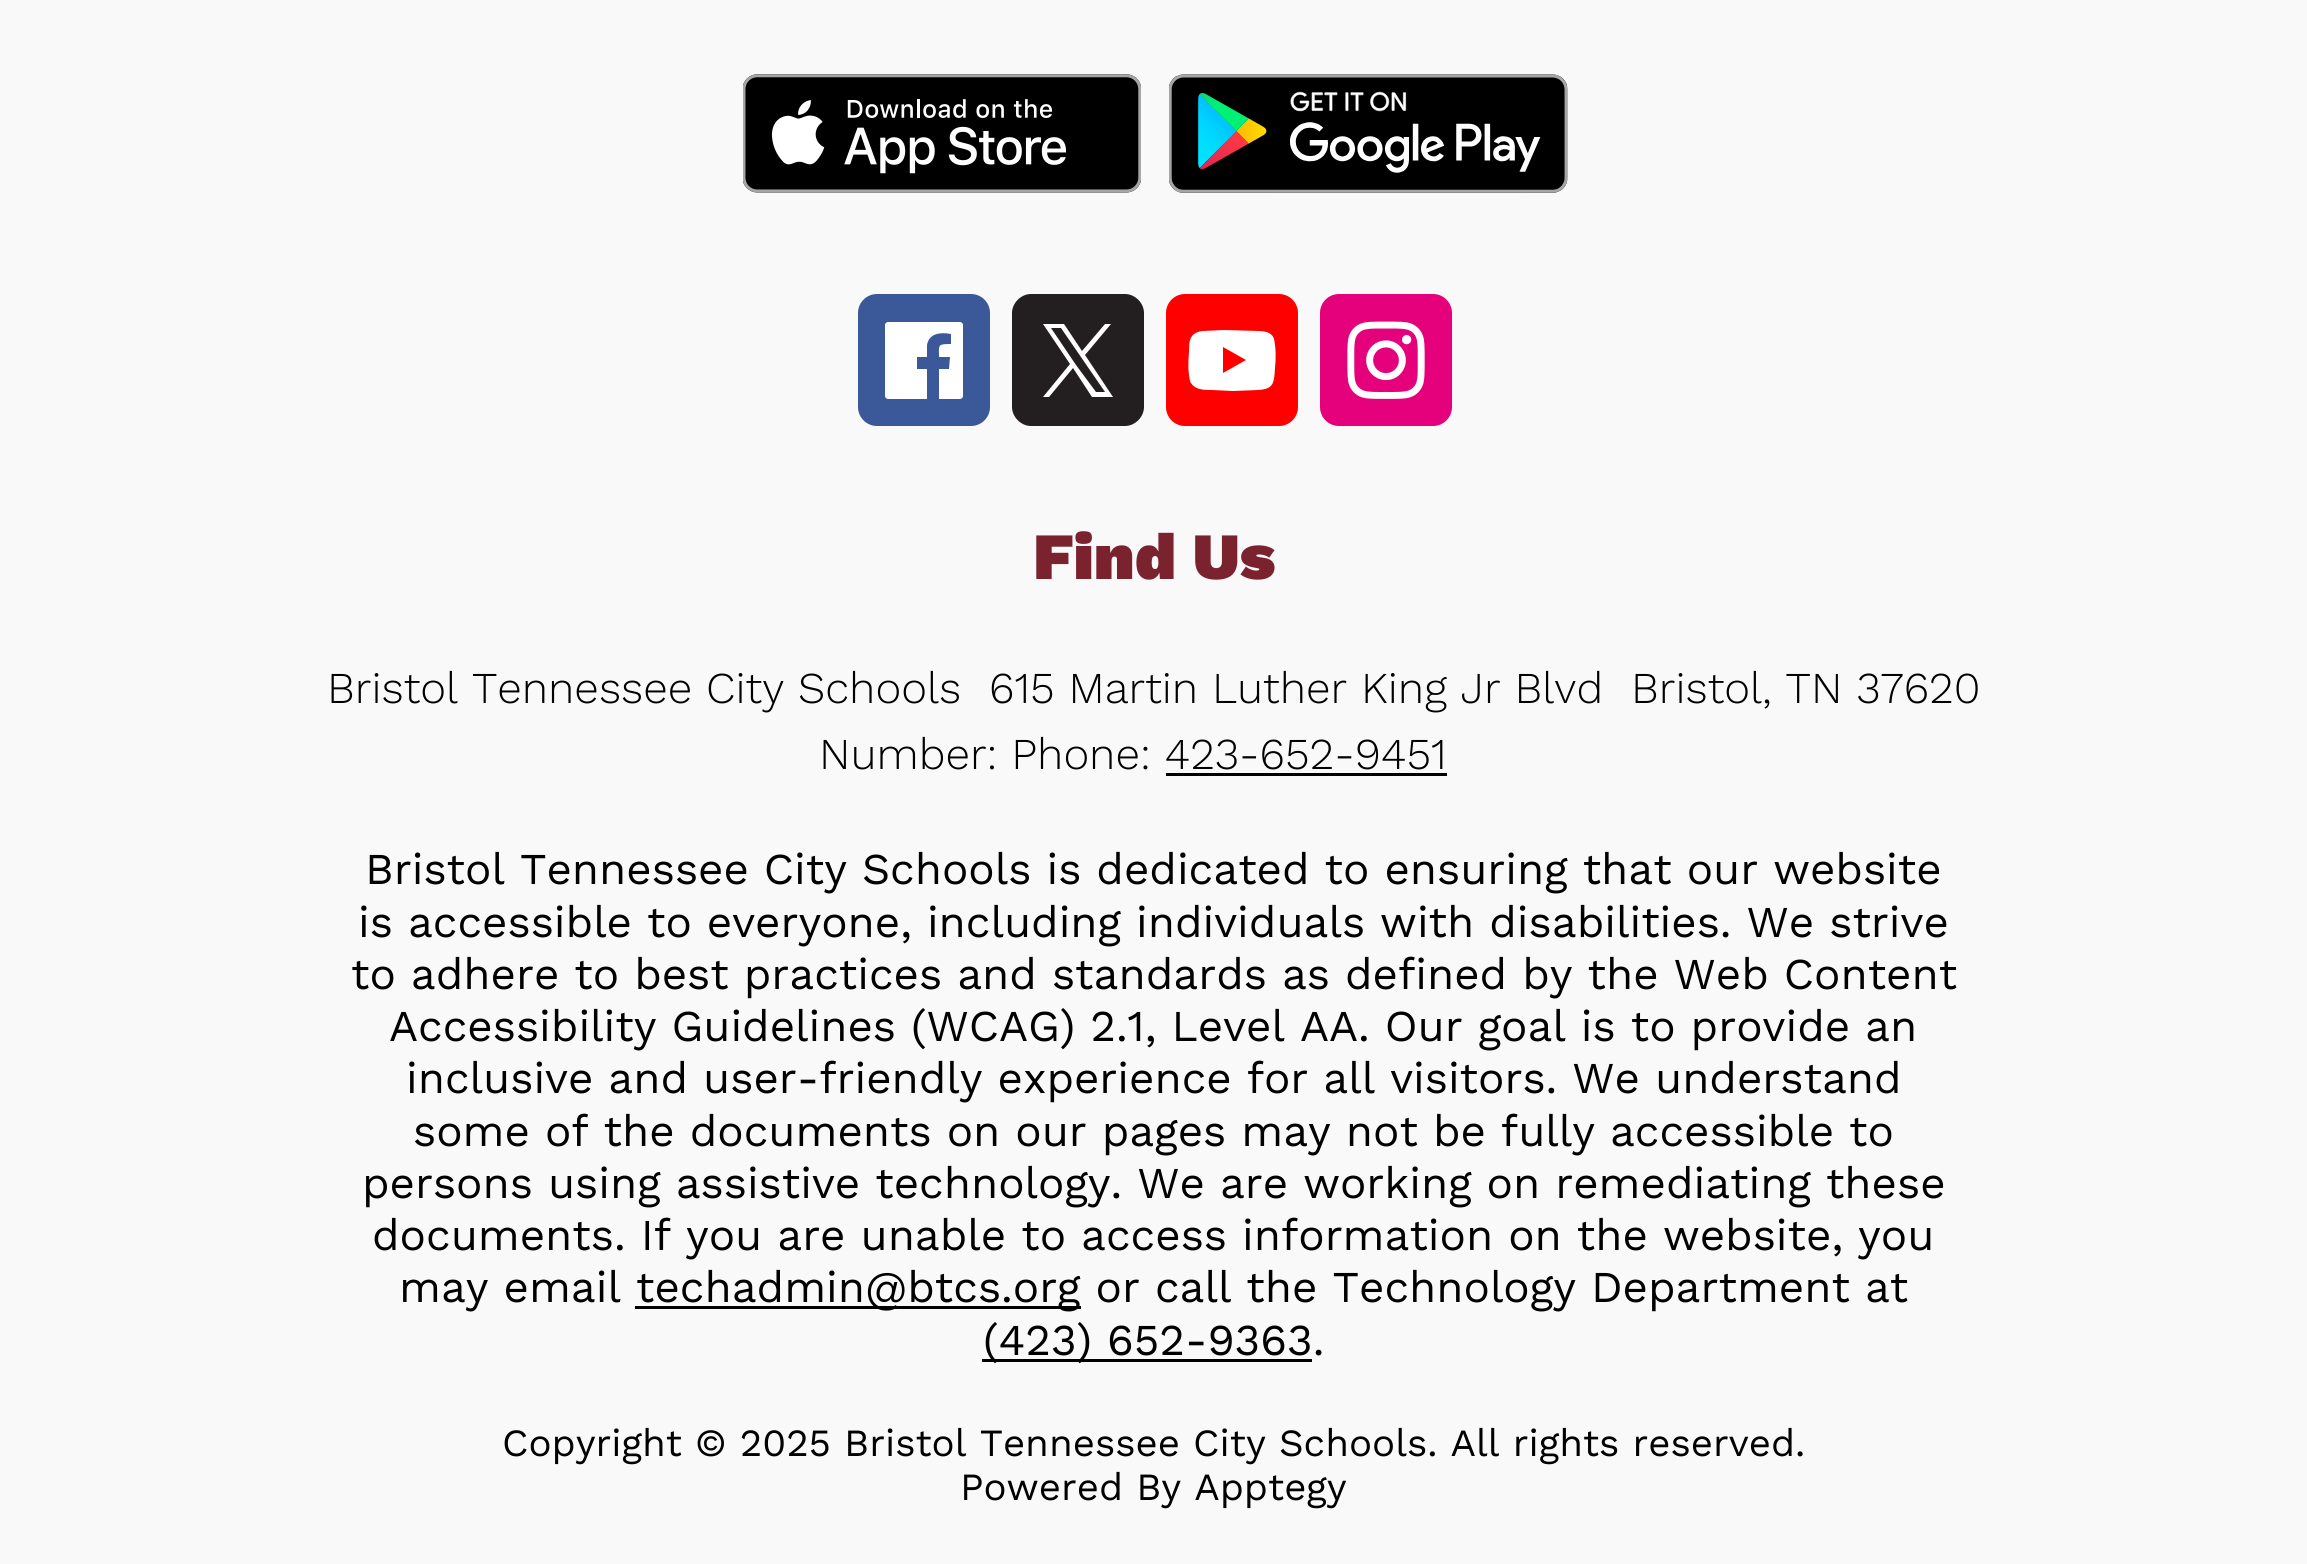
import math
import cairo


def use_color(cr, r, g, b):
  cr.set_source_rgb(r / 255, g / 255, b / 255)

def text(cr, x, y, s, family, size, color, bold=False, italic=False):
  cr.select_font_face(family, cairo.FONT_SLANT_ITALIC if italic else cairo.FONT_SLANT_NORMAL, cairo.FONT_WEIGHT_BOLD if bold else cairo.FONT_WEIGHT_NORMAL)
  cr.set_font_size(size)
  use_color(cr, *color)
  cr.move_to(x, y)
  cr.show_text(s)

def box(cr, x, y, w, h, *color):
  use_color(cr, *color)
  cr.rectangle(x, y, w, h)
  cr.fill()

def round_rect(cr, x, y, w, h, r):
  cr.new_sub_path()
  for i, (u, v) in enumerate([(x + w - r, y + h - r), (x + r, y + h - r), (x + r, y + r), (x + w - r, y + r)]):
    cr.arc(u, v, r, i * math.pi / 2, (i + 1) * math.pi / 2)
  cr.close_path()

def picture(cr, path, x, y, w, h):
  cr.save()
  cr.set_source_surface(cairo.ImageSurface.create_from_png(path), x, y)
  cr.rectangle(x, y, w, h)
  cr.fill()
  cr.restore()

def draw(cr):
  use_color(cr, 249, 249, 249)
  cr.paint()
  picture(cr, "img_01.png", 743, 74, 398, 119)
  picture(cr, "img_02.png", 1169, 74, 399, 119)
  use_color(cr, 59, 89, 152)
  round_rect(cr, 858, 294, 132, 132, 19)
  cr.fill()
  use_color(cr, 255, 255, 255)
  cr.new_path()
  cr.move_to(960, 322)
  cr.line_to(888, 322)
  cr.curve_to(887, 322, 885, 323, 885, 325)
  cr.line_to(885, 396)
  cr.curve_to(885, 398, 887, 399, 888, 399)
  cr.line_to(960, 399)
  cr.curve_to(961, 399, 963, 398, 963, 396)
  cr.line_to(963, 325)
  cr.curve_to(963, 323, 961, 322, 960, 322)
  cr.close_path()
  cr.move_to(951, 344)
  cr.curve_to(937, 344, 939, 345, 939, 357)
  cr.line_to(950, 357)
  cr.line_to(949, 369)
  cr.line_to(939, 369)
  cr.line_to(939, 399)
  cr.line_to(927, 399)
  cr.line_to(927, 369)
  cr.line_to(917, 369)
  cr.line_to(917, 357)
  cr.line_to(927, 357)
  cr.line_to(927, 345)
  cr.curve_to(929, 333, 941, 332, 951, 334)
  cr.close_path()
  cr.fill()
  use_color(cr, 35, 31, 32)
  cr.new_path()
  cr.move_to(1031, 294)
  cr.curve_to(1021, 294, 1012, 303, 1012, 313)
  cr.line_to(1012, 407)
  cr.curve_to(1012, 417, 1021, 426, 1031, 426)
  cr.line_to(1125, 426)
  cr.curve_to(1135, 426, 1144, 417, 1144, 407)
  cr.line_to(1144, 313)
  cr.curve_to(1144, 303, 1135, 294, 1125, 294)
  cr.close_path()
  cr.fill()
  use_color(cr, 255, 255, 255)
  cr.new_path()
  cr.move_to(1085, 355)
  cr.line_to(1111, 324)
  cr.line_to(1105, 324)
  cr.line_to(1082, 351)
  cr.line_to(1064, 324)
  cr.line_to(1043, 324)
  cr.line_to(1070, 364)
  cr.line_to(1043, 397)
  cr.line_to(1049, 397)
  cr.line_to(1073, 368)
  cr.line_to(1092, 397)
  cr.line_to(1113, 397)
  cr.close_path()
  cr.move_to(1076, 365)
  cr.line_to(1051, 328)
  cr.line_to(1061, 328)
  cr.line_to(1105, 392)
  cr.line_to(1096, 392)
  cr.close_path()
  cr.fill()
  use_color(cr, 255, 0, 0)
  round_rect(cr, 1166, 294, 132, 132, 19)
  cr.fill()
  use_color(cr, 255, 255, 255)
  cr.new_path()
  cr.move_to(1274, 339)
  cr.curve_to(1272, 332, 1264, 331, 1258, 331)
  cr.line_to(1223, 330)
  cr.line_to(1202, 331)
  cr.curve_to(1189, 333, 1189, 342, 1189, 352)
  cr.curve_to(1188, 362, 1188, 372, 1190, 381)
  cr.curve_to(1191, 384, 1194, 387, 1197, 388)
  cr.curve_to(1201, 390, 1207, 390, 1212, 390)
  cr.line_to(1233, 391)
  cr.line_to(1258, 390)
  cr.curve_to(1274, 389, 1274, 383, 1275, 368)
  cr.curve_to(1276, 359, 1276, 348, 1274, 339)
  cr.close_path()
  cr.move_to(1223, 373)
  cr.line_to(1223, 347)
  cr.line_to(1246, 360)
  cr.close_path()
  cr.fill()
  picture(cr, "img_03.png", 1320, 294, 132, 132)
  box(cr, 1166, 773, 281, 3, 0, 0, 0)
  box(cr, 635, 1306, 446, 3, 0, 0, 0)
  box(cr, 982, 1359, 330, 3, 0, 0, 0)
  text(cr, 1033, 579, "Find Us", "Work Sans Black", 66, (122, 34, 46))
  text(cr, 327, 703, "Bristol Tennessee City Schools", "Work Sans Light", 44, (0, 0, 0))
  text(cr, 989, 703, "615 Martin Luther King Jr Blvd", "Work Sans Light", 44, (0, 0, 0))
  text(cr, 1631, 703, "Bristol, TN 37620", "Work Sans Light", 44, (0, 0, 0))
  text(cr, 819, 769, "Number: Phone: 423-652-9451", "Work Sans Light", 44, (0, 0, 0))
  text(cr, 365, 884, "Bristol Tennessee City Schools is dedicated to ensuring that our website", "Work Sans", 44, (0, 0, 0))
  text(cr, 358, 937, "is accessible to everyone, including individuals with disabilities. We strive", "Work Sans", 44, (0, 0, 0))
  text(cr, 351, 989, "to adhere to best practices and standards as defined by the Web Content", "Work Sans", 44, (0, 0, 0))
  text(cr, 389, 1041, "Accessibility Guidelines (WCAG) 2.1, Level AA. Our goal is to provide an", "Work Sans", 44, (0, 0, 0))
  text(cr, 406, 1093, "inclusive and user-friendly experience for all visitors. We understand", "Work Sans", 44, (0, 0, 0))
  text(cr, 413, 1146, "some of the documents on our pages may not be fully accessible to", "Work Sans", 44, (0, 0, 0))
  text(cr, 362, 1198, "persons using assistive technology. We are working on remediating these", "Work Sans", 44, (0, 0, 0))
  text(cr, 372, 1250, "documents. If you are unable to access information on the website, you", "Work Sans", 44, (0, 0, 0))
  text(cr, 399, 1302, "may email", "Work Sans", 44, (0, 0, 0))
  text(cr, 636, 1302, "techadmin@btcs.org or call the Technology Department at", "Work Sans", 44, (0, 0, 0))
  text(cr, 983, 1355, "(423) 652-9363.", "Work Sans", 44, (0, 0, 0))
  text(cr, 502, 1456, "Copyright © 2025 Bristol Tennessee City Schools. All rights reserved.", "Work Sans", 38.5, (0, 0, 0))
  text(cr, 960, 1500, "Powered By Apptegy", "Work Sans", 38.5, (0, 0, 0))


surface = cairo.ImageSurface(cairo.FORMAT_RGB24, 2307, 1564)
cr = cairo.Context(surface)
options = cairo.FontOptions()
options.set_hint_metrics(cairo.HINT_METRICS_OFF)
options.set_hint_style(cairo.HINT_STYLE_NONE)
cr.set_font_options(options)
cr.set_miter_limit(4)
draw(cr)
surface.write_to_png("out.png")
